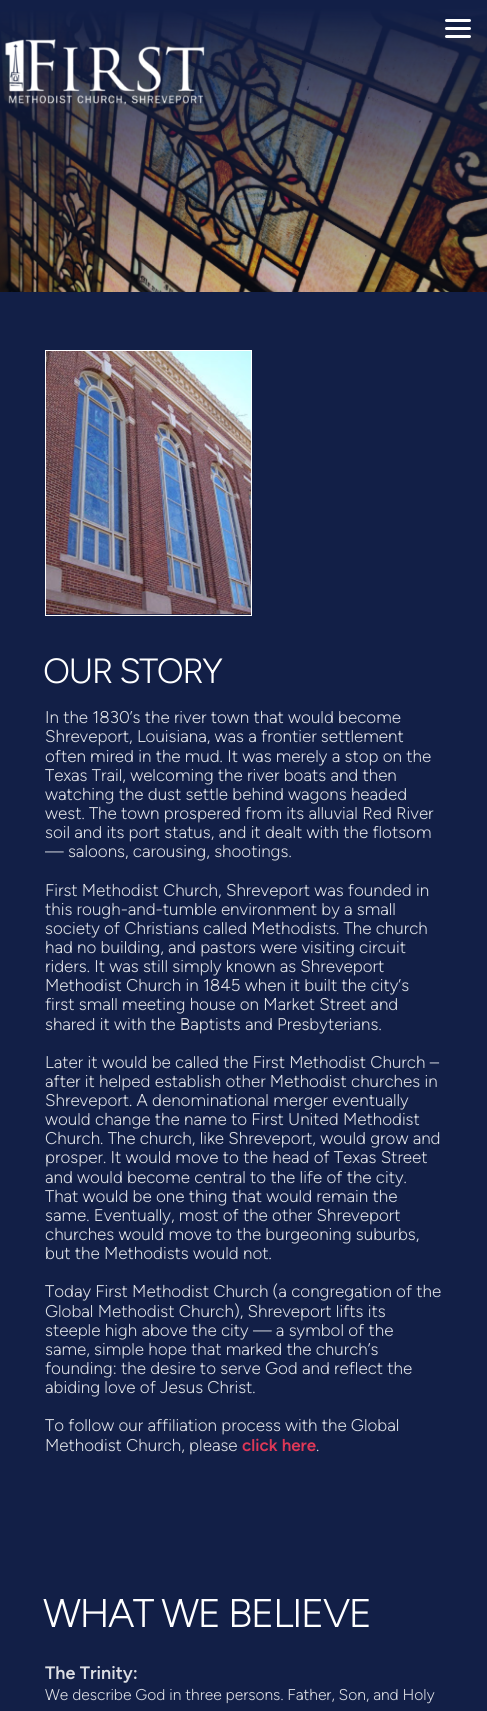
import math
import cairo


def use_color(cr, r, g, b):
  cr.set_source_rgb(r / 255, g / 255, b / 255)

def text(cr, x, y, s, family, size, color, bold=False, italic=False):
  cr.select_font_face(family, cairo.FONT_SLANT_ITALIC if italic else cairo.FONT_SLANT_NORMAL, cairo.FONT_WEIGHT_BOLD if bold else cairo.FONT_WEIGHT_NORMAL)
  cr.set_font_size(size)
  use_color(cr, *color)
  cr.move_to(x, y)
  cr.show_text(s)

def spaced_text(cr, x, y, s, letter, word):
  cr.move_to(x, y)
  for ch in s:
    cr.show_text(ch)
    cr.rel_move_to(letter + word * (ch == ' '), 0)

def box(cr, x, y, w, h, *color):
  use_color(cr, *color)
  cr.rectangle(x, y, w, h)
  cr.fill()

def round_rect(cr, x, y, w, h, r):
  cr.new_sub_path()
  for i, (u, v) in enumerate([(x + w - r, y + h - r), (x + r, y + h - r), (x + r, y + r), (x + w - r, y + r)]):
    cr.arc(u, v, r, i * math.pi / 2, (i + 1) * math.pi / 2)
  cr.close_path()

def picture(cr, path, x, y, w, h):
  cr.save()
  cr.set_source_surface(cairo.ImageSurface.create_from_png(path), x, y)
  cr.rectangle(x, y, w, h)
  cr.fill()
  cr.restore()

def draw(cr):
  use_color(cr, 255, 255, 255)
  cr.paint()
  picture(cr, "img_02.png", 0, 0, 487, 292)
  use_color(cr, 255, 255, 255)
  round_rect(cr, 445, 19, 26, 3, 1.5)
  cr.fill()
  round_rect(cr, 445, 27, 26, 3, 1.5)
  cr.fill()
  round_rect(cr, 445, 35, 26, 3, 1.5)
  cr.fill()
  picture(cr, "img_01.png", 5, 39, 200, 66)
  box(cr, 0, 292, 487, 1419, 18, 31, 71)
  cr.rectangle(45.5, 350.5, 206, 265)
  use_color(cr, 255, 255, 255)
  cr.set_line_width(1)
  cr.stroke()
  picture(cr, "img_03.png", 46, 351, 205, 264)
  cr.select_font_face("Figtree Light")
  cr.set_font_size(35)
  spaced_text(cr, 43, 683, "OUR STORY", -1.5, 0)
  text(cr, 45, 723, "In the 1830’s the river town that would become", "Figtree Light", 17, (219, 221, 227))
  text(cr, 45, 742, "Shreveport, Louisiana, was a frontier settlement", "Figtree Light", 17, (219, 221, 227))
  text(cr, 45, 762, "often mired in the mud. It was merely a stop on the", "Figtree Light", 17, (219, 221, 227))
  text(cr, 45, 781, "Texas Trail, welcoming the river boats and then", "Figtree Light", 17, (219, 221, 227))
  text(cr, 45, 800, "watching the dust settle behind wagons headed", "Figtree Light", 17, (219, 221, 227))
  text(cr, 45, 819, "west. The town prospered from its alluvial Red River", "Figtree Light", 17, (219, 221, 227))
  text(cr, 45, 838, "soil and its port status, and it dealt with the flotsom", "Figtree Light", 17, (219, 221, 227))
  text(cr, 45, 857, "— saloons, carousing, shootings.", "Figtree Light", 17, (219, 221, 227))
  text(cr, 45, 896, "First Methodist Church, Shreveport was founded in", "Figtree Light", 17, (219, 221, 227))
  text(cr, 45, 915, "this rough-and-tumble environment by a small", "Figtree Light", 17, (219, 221, 227))
  text(cr, 45, 934, "society of Christians called Methodists. The church", "Figtree Light", 17, (219, 221, 227))
  text(cr, 45, 953, "had no building, and pastors were visiting circuit", "Figtree Light", 17, (219, 221, 227))
  text(cr, 45, 972, "riders. It was still simply known as Shreveport", "Figtree Light", 17, (219, 221, 227))
  text(cr, 45, 991, "Methodist Church in 1845 when it built the city’s", "Figtree Light", 17, (219, 221, 227))
  text(cr, 45, 1010, "first small meeting house on Market Street and", "Figtree Light", 17, (219, 221, 227))
  text(cr, 45, 1030, "shared it with the Baptists and Presbyterians.", "Figtree Light", 17, (219, 221, 227))
  text(cr, 45, 1068, "Later it would be called the First Methodist Church –", "Figtree Light", 17, (219, 221, 227))
  text(cr, 45, 1087, "after it helped establish other Methodist churches in", "Figtree Light", 17, (219, 221, 227))
  text(cr, 45, 1106, "Shreveport. A denominational merger eventually", "Figtree Light", 17, (219, 221, 227))
  text(cr, 45, 1125, "would change the name to First United Methodist", "Figtree Light", 17, (219, 221, 227))
  text(cr, 45, 1144, "Church. The church, like Shreveport, would grow and", "Figtree Light", 17, (219, 221, 227))
  text(cr, 45, 1163, "prosper. It would move to the head of Texas Street", "Figtree Light", 17, (219, 221, 227))
  text(cr, 45, 1183, "and would become central to the life of the city.", "Figtree Light", 17, (219, 221, 227))
  text(cr, 45, 1202, "That would be one thing that would remain the", "Figtree Light", 17, (219, 221, 227))
  text(cr, 45, 1221, "same. Eventually, most of the other Shreveport", "Figtree Light", 17, (219, 221, 227))
  text(cr, 45, 1240, "churches would move to the burgeoning suburbs,", "Figtree Light", 17, (219, 221, 227))
  text(cr, 45, 1259, "but the Methodists would not.", "Figtree Light", 17, (219, 221, 227))
  text(cr, 45, 1297, "Today First Methodist Church (a congregation of the", "Figtree Light", 17, (219, 221, 227))
  text(cr, 45, 1317, "Global Methodist Church), Shreveport lifts its", "Figtree Light", 17, (219, 221, 227))
  text(cr, 45, 1336, "steeple high above the city — a symbol of the", "Figtree Light", 17, (219, 221, 227))
  text(cr, 45, 1355, "same, simple hope that marked the church’s", "Figtree Light", 17, (219, 221, 227))
  text(cr, 45, 1374, "founding: the desire to serve God and reflect the", "Figtree Light", 17, (219, 221, 227))
  text(cr, 45, 1393, "abiding love of Jesus Christ.", "Figtree Light", 17, (219, 221, 227))
  text(cr, 45, 1431, "To follow our affiliation process with the Global", "Figtree Light", 17, (219, 221, 227))
  text(cr, 45, 1451, "Methodist Church, please", "Figtree Light", 17, (219, 221, 227))
  text(cr, 242, 1451, "click here", "Figtree SemiBold", 17, (224, 56, 87))
  text(cr, 316, 1451, ".", "Figtree Light", 17, (219, 221, 227))
  cr.set_font_size(40)
  use_color(cr, 255, 255, 255)
  spaced_text(cr, 43, 1627, "WHAT WE BELIEVE", -1.6, 0)
  text(cr, 45, 1679, "The Trinity:", "Figtree SemiBold", 18, (219, 221, 227))
  text(cr, 45, 1700, "We describe God in three persons. Father, Son, and Holy", "Figtree Light", 15.6, (219, 221, 227))


surface = cairo.ImageSurface(cairo.FORMAT_RGB24, 487, 1711)
cr = cairo.Context(surface)
options = cairo.FontOptions()
options.set_hint_metrics(cairo.HINT_METRICS_OFF)
options.set_hint_style(cairo.HINT_STYLE_NONE)
cr.set_font_options(options)
cr.set_miter_limit(4)
draw(cr)
surface.write_to_png("out.png")
